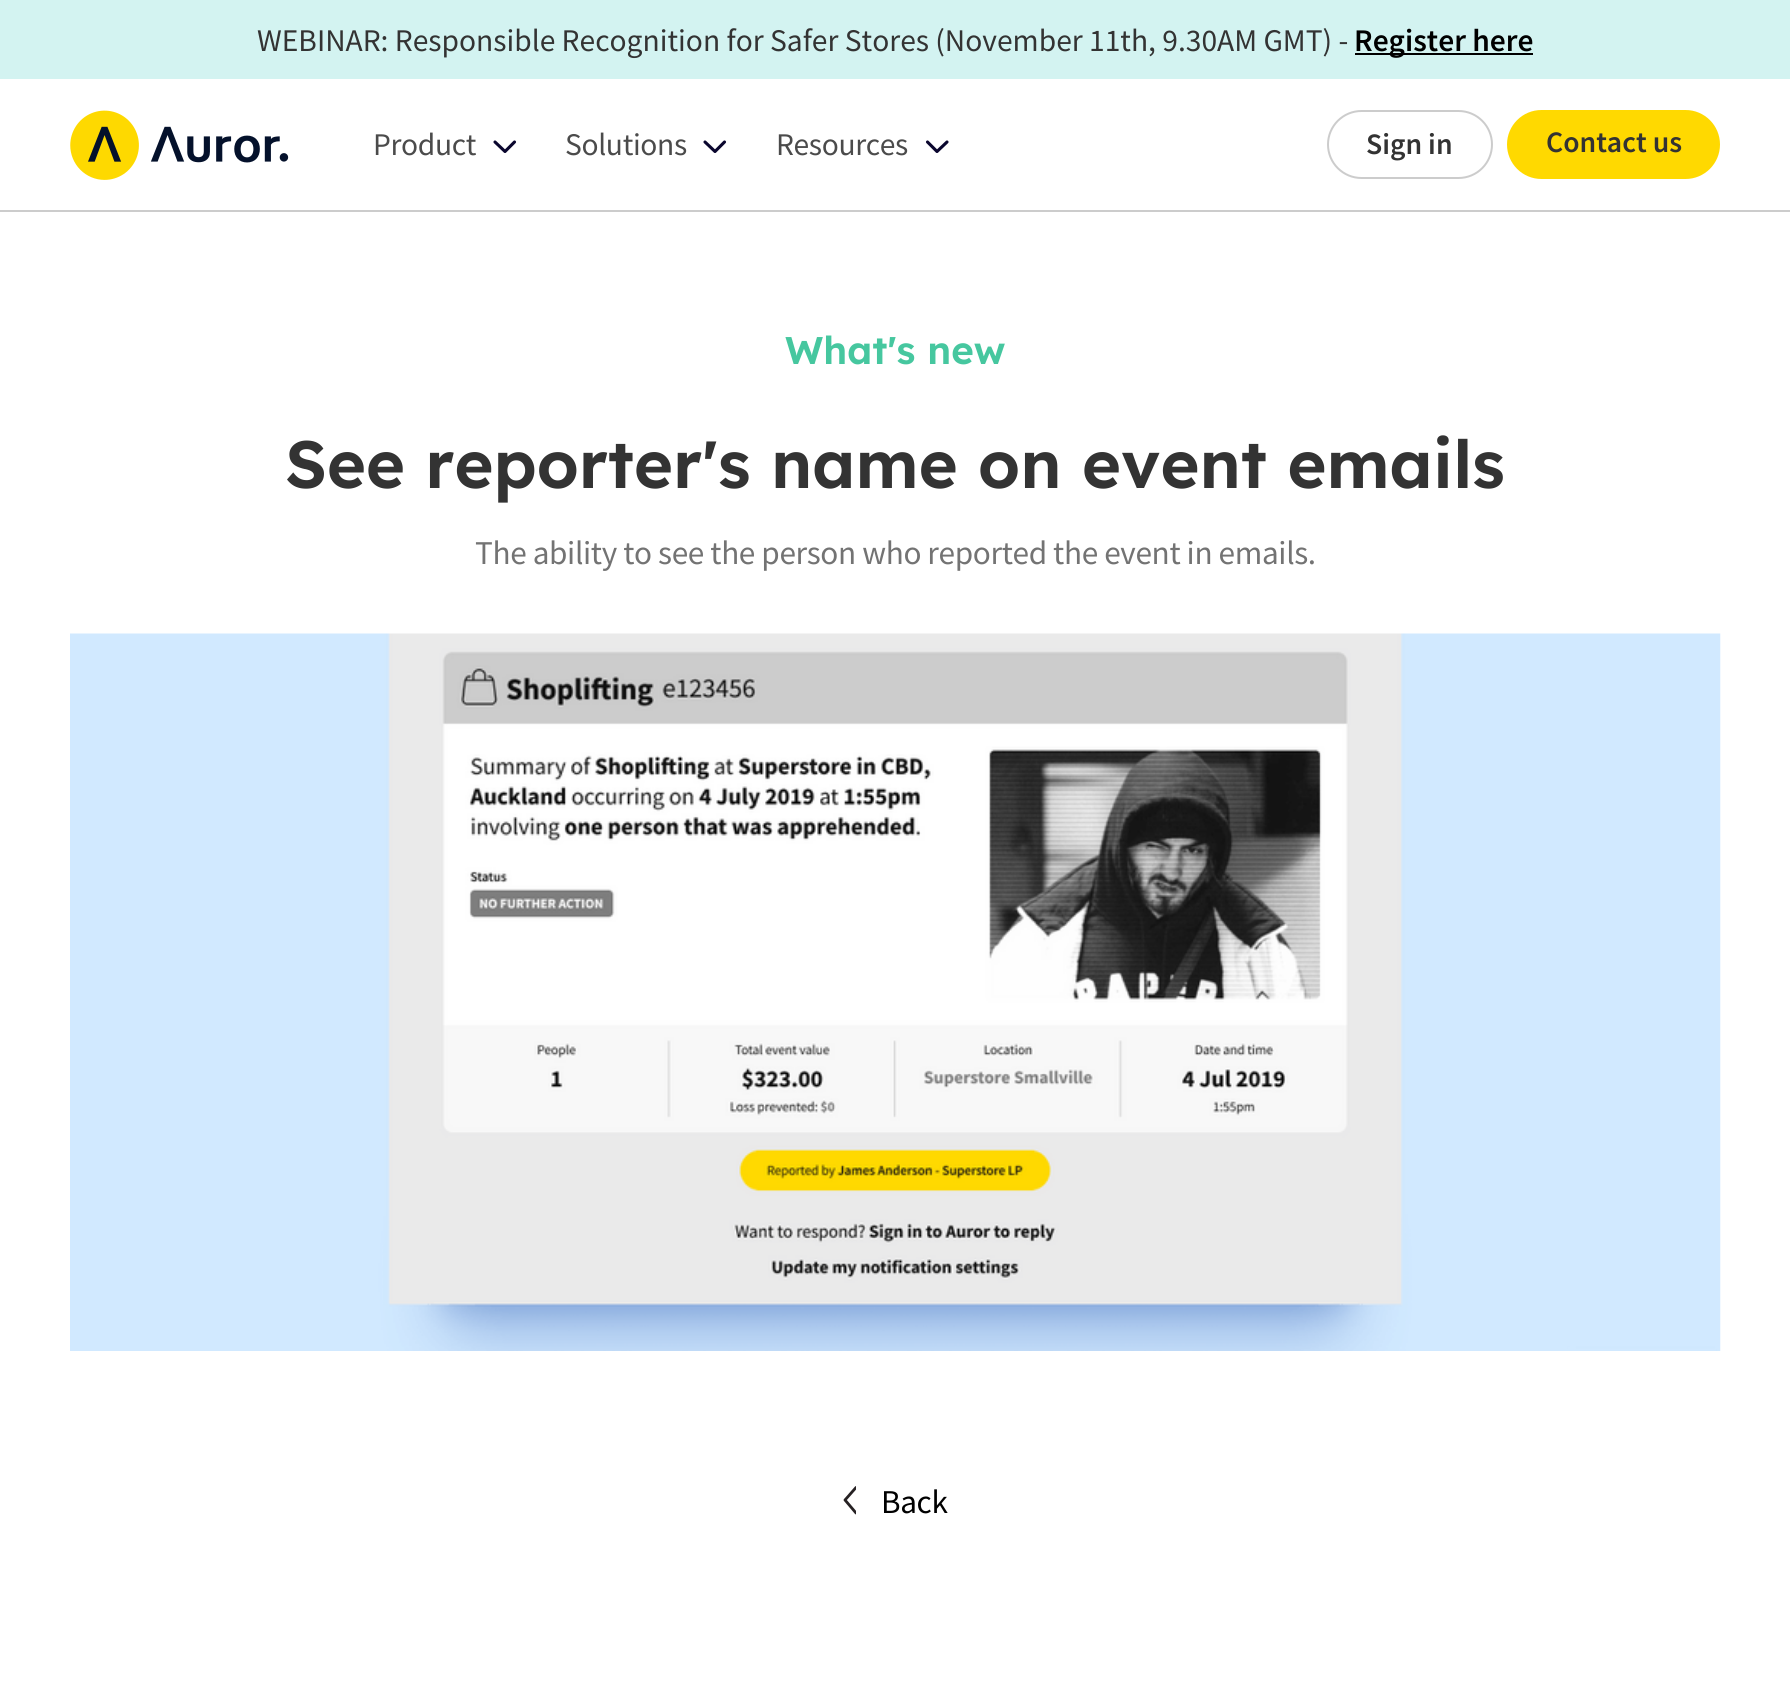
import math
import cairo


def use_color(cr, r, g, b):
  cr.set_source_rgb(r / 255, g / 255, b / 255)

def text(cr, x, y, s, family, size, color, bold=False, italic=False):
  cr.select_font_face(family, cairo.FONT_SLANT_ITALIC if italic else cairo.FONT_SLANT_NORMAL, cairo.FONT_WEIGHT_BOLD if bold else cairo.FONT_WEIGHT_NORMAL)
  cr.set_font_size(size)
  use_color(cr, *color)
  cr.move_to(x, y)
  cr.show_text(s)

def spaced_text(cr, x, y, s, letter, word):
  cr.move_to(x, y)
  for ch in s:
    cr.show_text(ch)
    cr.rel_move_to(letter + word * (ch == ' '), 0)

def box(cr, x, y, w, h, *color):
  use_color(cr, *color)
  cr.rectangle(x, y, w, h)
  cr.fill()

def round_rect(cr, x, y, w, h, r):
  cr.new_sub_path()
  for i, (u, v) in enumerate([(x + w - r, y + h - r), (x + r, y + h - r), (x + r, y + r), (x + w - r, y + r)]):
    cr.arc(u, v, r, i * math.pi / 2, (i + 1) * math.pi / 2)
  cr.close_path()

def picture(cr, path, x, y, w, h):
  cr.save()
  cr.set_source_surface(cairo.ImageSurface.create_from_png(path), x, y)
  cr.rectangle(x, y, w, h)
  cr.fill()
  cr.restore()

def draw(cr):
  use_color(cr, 255, 255, 255)
  cr.paint()
  box(cr, 0, 210, 1790, 2, 204, 204, 204)
  box(cr, 0, 0, 1790, 79, 211, 243, 241)
  box(cr, 1355, 53, 178, 2, 0, 0, 0)
  picture(cr, "img_01.png", 70, 110, 219, 70)
  cr.new_path()
  cr.move_to(514.5, 142)
  cr.line_to(505, 151.5)
  cr.line_to(495, 142)
  use_color(cr, 10, 6, 46)
  cr.set_line_width(3.1)
  cr.set_line_cap(cairo.LINE_CAP_ROUND)
  cr.set_line_join(cairo.LINE_JOIN_ROUND)
  cr.stroke()
  cr.new_path()
  cr.move_to(724.5, 142)
  cr.line_to(715, 151.5)
  cr.line_to(705, 142)
  cr.stroke()
  cr.new_path()
  cr.move_to(947, 142)
  cr.line_to(937, 151.5)
  cr.line_to(927.5, 142)
  cr.stroke()
  round_rect(cr, 1328, 111, 164, 67, 33.5)
  use_color(cr, 204, 204, 204)
  cr.set_line_width(2)
  cr.set_line_cap(cairo.LINE_CAP_BUTT)
  cr.set_line_join(cairo.LINE_JOIN_MITER)
  cr.stroke()
  use_color(cr, 255, 217, 0)
  round_rect(cr, 1507, 110, 213, 69, 34.5)
  cr.fill()
  picture(cr, "img_02.png", 70, 633, 1651, 718)
  cr.save()
  cr.rectangle(842, 1477, 14, 49)
  cr.clip()
  cr.new_path()
  cr.move_to(856, 1487.5)
  cr.line_to(845, 1500)
  cr.line_to(856, 1513)
  use_color(cr, 38, 33, 35)
  cr.set_line_width(2.8)
  cr.set_line_cap(cairo.LINE_CAP_ROUND)
  cr.set_line_join(cairo.LINE_JOIN_ROUND)
  cr.stroke()
  cr.restore()
  text(cr, 257, 51, "WEBINAR: Responsible Recognition for Safer Stores (November 11th, 9.30AM GMT) -", "Source Sans Pro", 31.5, (51, 51, 51))
  text(cr, 1354, 51, "Register here", "Source Sans Pro SemiBold", 31.5, (0, 0, 0))
  cr.select_font_face("Source Sans Pro")
  use_color(cr, 75, 75, 75)
  spaced_text(cr, 373, 155, "Product", -0.35, 0)
  spaced_text(cr, 565, 155, "Solutions", -0.35, 0)
  spaced_text(cr, 776, 155, "Resources", -0.35, 0)
  text(cr, 1366, 154, "Sign in", "Source Sans Pro SemiBold", 29.75, (51, 51, 51))
  text(cr, 1546, 152, "Contact us", "Source Sans Pro SemiBold", 29.75, (51, 51, 51))
  text(cr, 785, 364, "What's new", "Lexend SemiBold", 38.5, (70, 199, 159))
  text(cr, 285, 488, "See reporter's name on event emails", "Lexend SemiBold", 66.5, (51, 51, 51))
  cr.select_font_face("Source Sans Pro")
  cr.set_font_size(33.25)
  use_color(cr, 115, 115, 115)
  spaced_text(cr, 475, 564, "The ability to see the person who reported the event in emails.", -0.35, 0)
  use_color(cr, 0, 0, 0)
  spaced_text(cr, 881, 1513, "Back", -0.35, 0)


surface = cairo.ImageSurface(cairo.FORMAT_RGB24, 1790, 1702)
cr = cairo.Context(surface)
options = cairo.FontOptions()
options.set_hint_metrics(cairo.HINT_METRICS_OFF)
options.set_hint_style(cairo.HINT_STYLE_NONE)
cr.set_font_options(options)
cr.set_miter_limit(4)
draw(cr)
surface.write_to_png("out.png")
